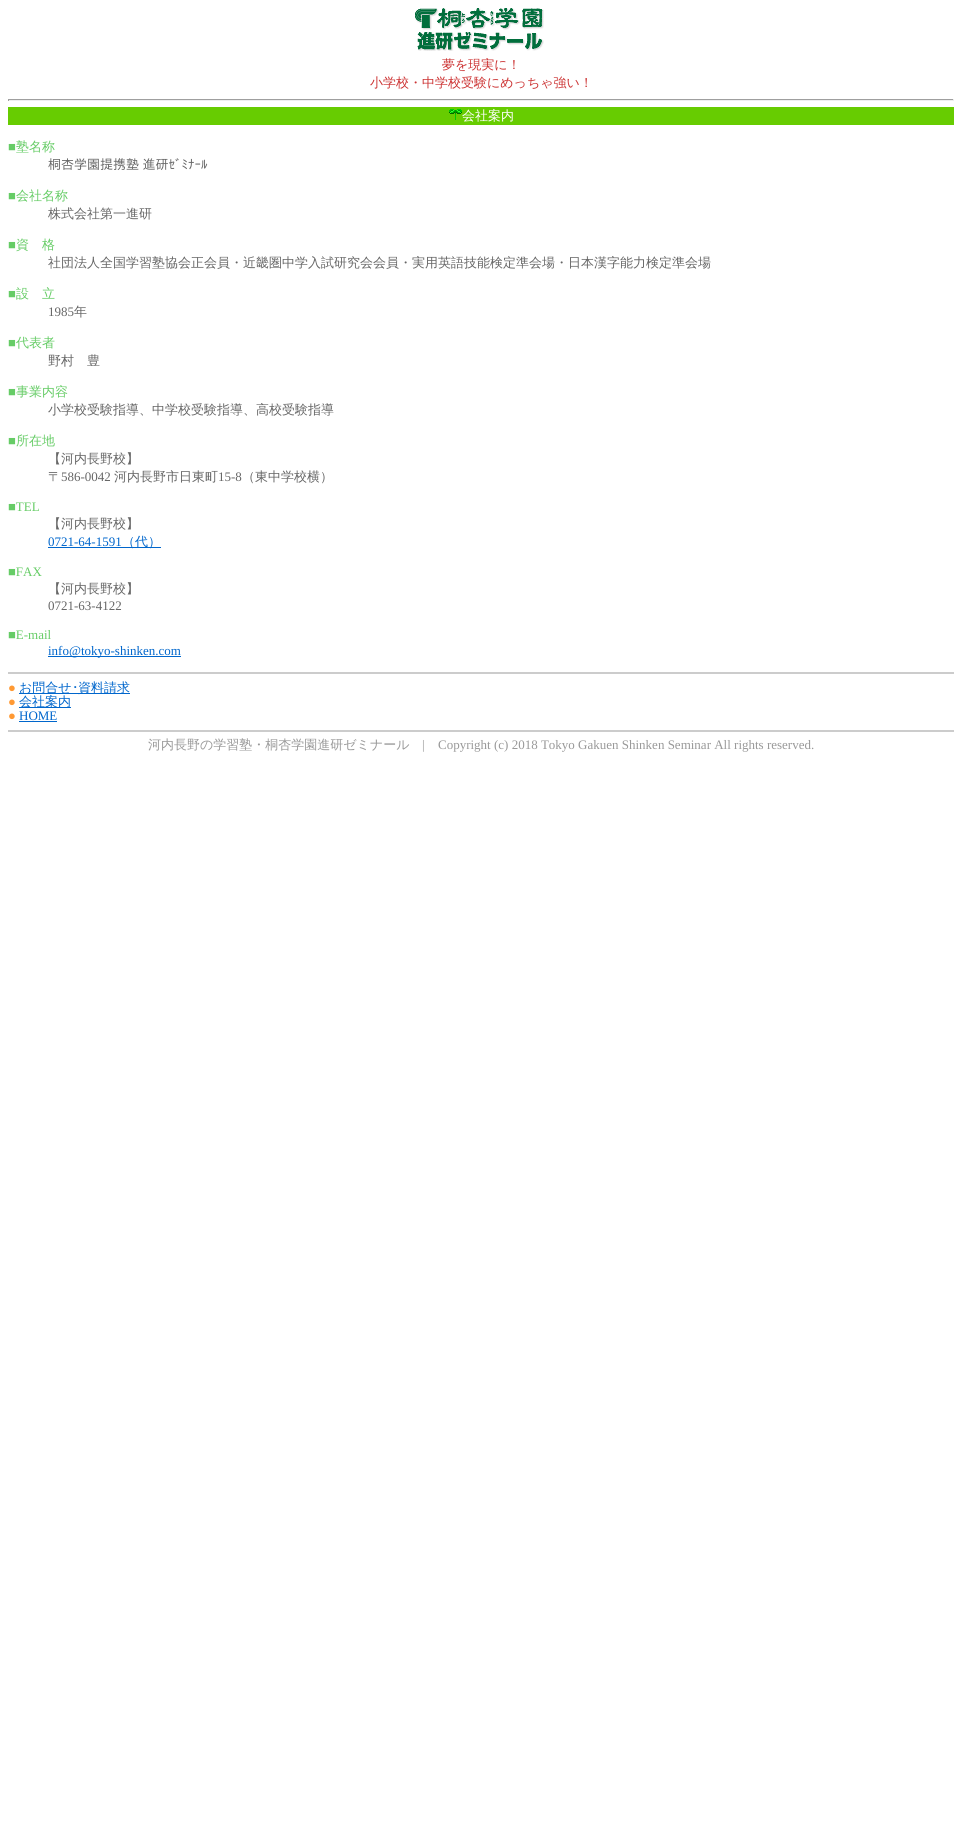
import math
import cairo


def use_color(cr, r, g, b):
  cr.set_source_rgb(r / 255, g / 255, b / 255)

def text(cr, x, y, s, family, size, color, bold=False, italic=False):
  cr.select_font_face(family, cairo.FONT_SLANT_ITALIC if italic else cairo.FONT_SLANT_NORMAL, cairo.FONT_WEIGHT_BOLD if bold else cairo.FONT_WEIGHT_NORMAL)
  cr.set_font_size(size)
  use_color(cr, *color)
  cr.move_to(x, y)
  cr.show_text(s)

def box(cr, x, y, w, h, *color):
  use_color(cr, *color)
  cr.rectangle(x, y, w, h)
  cr.fill()

def picture(cr, path, x, y, w, h):
  cr.save()
  cr.set_source_surface(cairo.ImageSurface.create_from_png(path), x, y)
  cr.rectangle(x, y, w, h)
  cr.fill()
  cr.restore()

def draw(cr):
  use_color(cr, 255, 255, 255)
  cr.paint()
  picture(cr, "img_01.png", 415, 8, 129, 43)
  box(cr, 8, 99, 946, 1, 159, 159, 159)
  box(cr, 953, 99, 1, 2, 238, 238, 238)
  box(cr, 8, 100, 946, 1, 238, 238, 238)
  box(cr, 8, 99, 1, 2, 159, 159, 159)
  box(cr, 8, 107, 946, 18, 103, 204, 1)
  picture(cr, "img_02.png", 449, 109, 13, 11)
  box(cr, 48, 547, 113, 1, 0, 102, 204)
  box(cr, 48, 656, 133, 1, 0, 102, 204)
  box(cr, 8, 672, 946, 2, 204, 204, 204)
  box(cr, 19, 693, 111, 1, 0, 102, 204)
  box(cr, 19, 707, 52, 1, 0, 102, 204)
  box(cr, 19, 721, 38, 1, 0, 102, 204)
  box(cr, 8, 730, 946, 2, 204, 204, 204)
  text(cr, 442, 69, "夢を現実に！", "WenQuanYi Zen Hei Medium", 13, (204, 51, 51))
  text(cr, 370, 87, "小学校・中学校受験にめっちゃ強い！", "WenQuanYi Zen Hei Medium", 13, (204, 51, 51))
  text(cr, 462, 120, "会社案内", "WenQuanYi Zen Hei Medium", 13, (255, 255, 255))
  text(cr, 8, 151, "■", "Liberation Serif", 13, (102, 204, 102))
  text(cr, 16, 151, "塾名称", "WenQuanYi Zen Hei Medium", 13, (102, 204, 102))
  text(cr, 48, 169, "桐杏学園提携塾 進研ｾﾞﾐﾅｰﾙ", "IPAPGothic", 13, (102, 102, 102))
  text(cr, 8, 200, "■", "Liberation Serif", 13, (102, 204, 102))
  text(cr, 16, 200, "会社名称", "WenQuanYi Zen Hei Medium", 13, (102, 204, 102))
  text(cr, 48, 218, "株式会社第一進研", "WenQuanYi Zen Hei Medium", 13, (102, 102, 102))
  text(cr, 8, 249, "■", "Liberation Serif", 13, (102, 204, 102))
  text(cr, 16, 249, "資　格", "WenQuanYi Zen Hei Medium", 13, (102, 204, 102))
  text(cr, 48, 267, "社団法人全国学習塾協会正会員・近畿圏中学入試研究会会員・実用英語技能検定準会場・日本漢字能力検定準会場", "WenQuanYi Zen Hei Medium", 13, (102, 102, 102))
  text(cr, 8, 298, "■", "Liberation Serif", 13, (102, 204, 102))
  text(cr, 16, 298, "設　立", "WenQuanYi Zen Hei Medium", 13, (102, 204, 102))
  text(cr, 48, 316, "1985", "Liberation Serif", 13, (102, 102, 102))
  text(cr, 74, 316, "年", "WenQuanYi Zen Hei Medium", 13, (102, 102, 102))
  text(cr, 8, 347, "■", "Liberation Serif", 13, (102, 204, 102))
  text(cr, 16, 347, "代表者", "WenQuanYi Zen Hei Medium", 13, (102, 204, 102))
  text(cr, 48, 365, "野村　豊", "WenQuanYi Zen Hei Medium", 13, (102, 102, 102))
  text(cr, 8, 396, "■", "Liberation Serif", 13, (102, 204, 102))
  text(cr, 16, 396, "事業内容", "WenQuanYi Zen Hei Medium", 13, (102, 204, 102))
  text(cr, 48, 414, "小学校受験指導、中学校受験指導、高校受験指導", "WenQuanYi Zen Hei Medium", 13, (102, 102, 102))
  text(cr, 8, 445, "■", "Liberation Serif", 13, (102, 204, 102))
  text(cr, 16, 445, "所在地", "WenQuanYi Zen Hei Medium", 13, (102, 204, 102))
  text(cr, 48, 463, "【河内長野校】", "WenQuanYi Zen Hei Medium", 13, (102, 102, 102))
  text(cr, 48, 481, "〒", "WenQuanYi Zen Hei Medium", 13, (102, 102, 102))
  text(cr, 61, 481, "586-0042", "Liberation Serif", 13, (102, 102, 102))
  text(cr, 114, 481, "河内長野市日東町", "WenQuanYi Zen Hei Medium", 13, (102, 102, 102))
  text(cr, 218, 481, "15-8", "Liberation Serif", 13, (102, 102, 102))
  text(cr, 242, 481, "（東中学校横）", "WenQuanYi Zen Hei Medium", 13, (102, 102, 102))
  text(cr, 8, 511, "■TEL", "Liberation Serif", 13, (102, 204, 102))
  text(cr, 48, 528, "【河内長野校】", "WenQuanYi Zen Hei Medium", 13, (102, 102, 102))
  text(cr, 48, 546, "0721-64-1591", "Liberation Serif", 13, (0, 102, 204))
  text(cr, 122, 546, "（代）", "WenQuanYi Zen Hei Medium", 13, (0, 102, 204))
  text(cr, 8, 576, "■FAX", "Liberation Serif", 13, (102, 204, 102))
  text(cr, 48, 593, "【河内長野校】", "WenQuanYi Zen Hei Medium", 13, (102, 102, 102))
  text(cr, 48, 610, "0721-63-4122", "Liberation Serif", 13, (102, 102, 102))
  text(cr, 8, 639, "■E-mail", "Liberation Serif", 13, (102, 204, 102))
  text(cr, 48, 655, "info@tokyo-shinken.com", "Liberation Serif", 13, (0, 102, 204))
  text(cr, 8, 692, "●", "Liberation Serif", 13, (255, 153, 51))
  text(cr, 19, 692, "お問合せ", "WenQuanYi Zen Hei Medium", 13, (0, 102, 204))
  text(cr, 72, 692, "･", "IPAPGothic", 13, (0, 102, 204))
  text(cr, 78, 692, "資料請求", "WenQuanYi Zen Hei Medium", 13, (0, 102, 204))
  text(cr, 8, 706, "●", "Liberation Serif", 13, (255, 153, 51))
  text(cr, 19, 706, "会社案内", "WenQuanYi Zen Hei Medium", 13, (0, 102, 204))
  text(cr, 8, 720, "●", "Liberation Serif", 13, (255, 153, 51))
  text(cr, 19, 720, "HOME", "Liberation Serif", 13, (0, 102, 204))
  text(cr, 148, 749, "河内長野の学習塾・桐杏学園進研ゼミナール", "WenQuanYi Zen Hei Medium", 13, (153, 153, 153))
  text(cr, 422, 749, "|", "Liberation Serif", 13, (153, 153, 153))
  text(cr, 438, 749, "Copyright (c) 2018 Tokyo Gakuen Shinken Seminar All rights reserved.", "Liberation Serif", 13, (153, 153, 153))


surface = cairo.ImageSurface(cairo.FORMAT_RGB24, 962, 1829)
cr = cairo.Context(surface)
options = cairo.FontOptions()
options.set_hint_metrics(cairo.HINT_METRICS_OFF)
options.set_hint_style(cairo.HINT_STYLE_NONE)
cr.set_font_options(options)
cr.set_miter_limit(4)
draw(cr)
surface.write_to_png("out.png")
